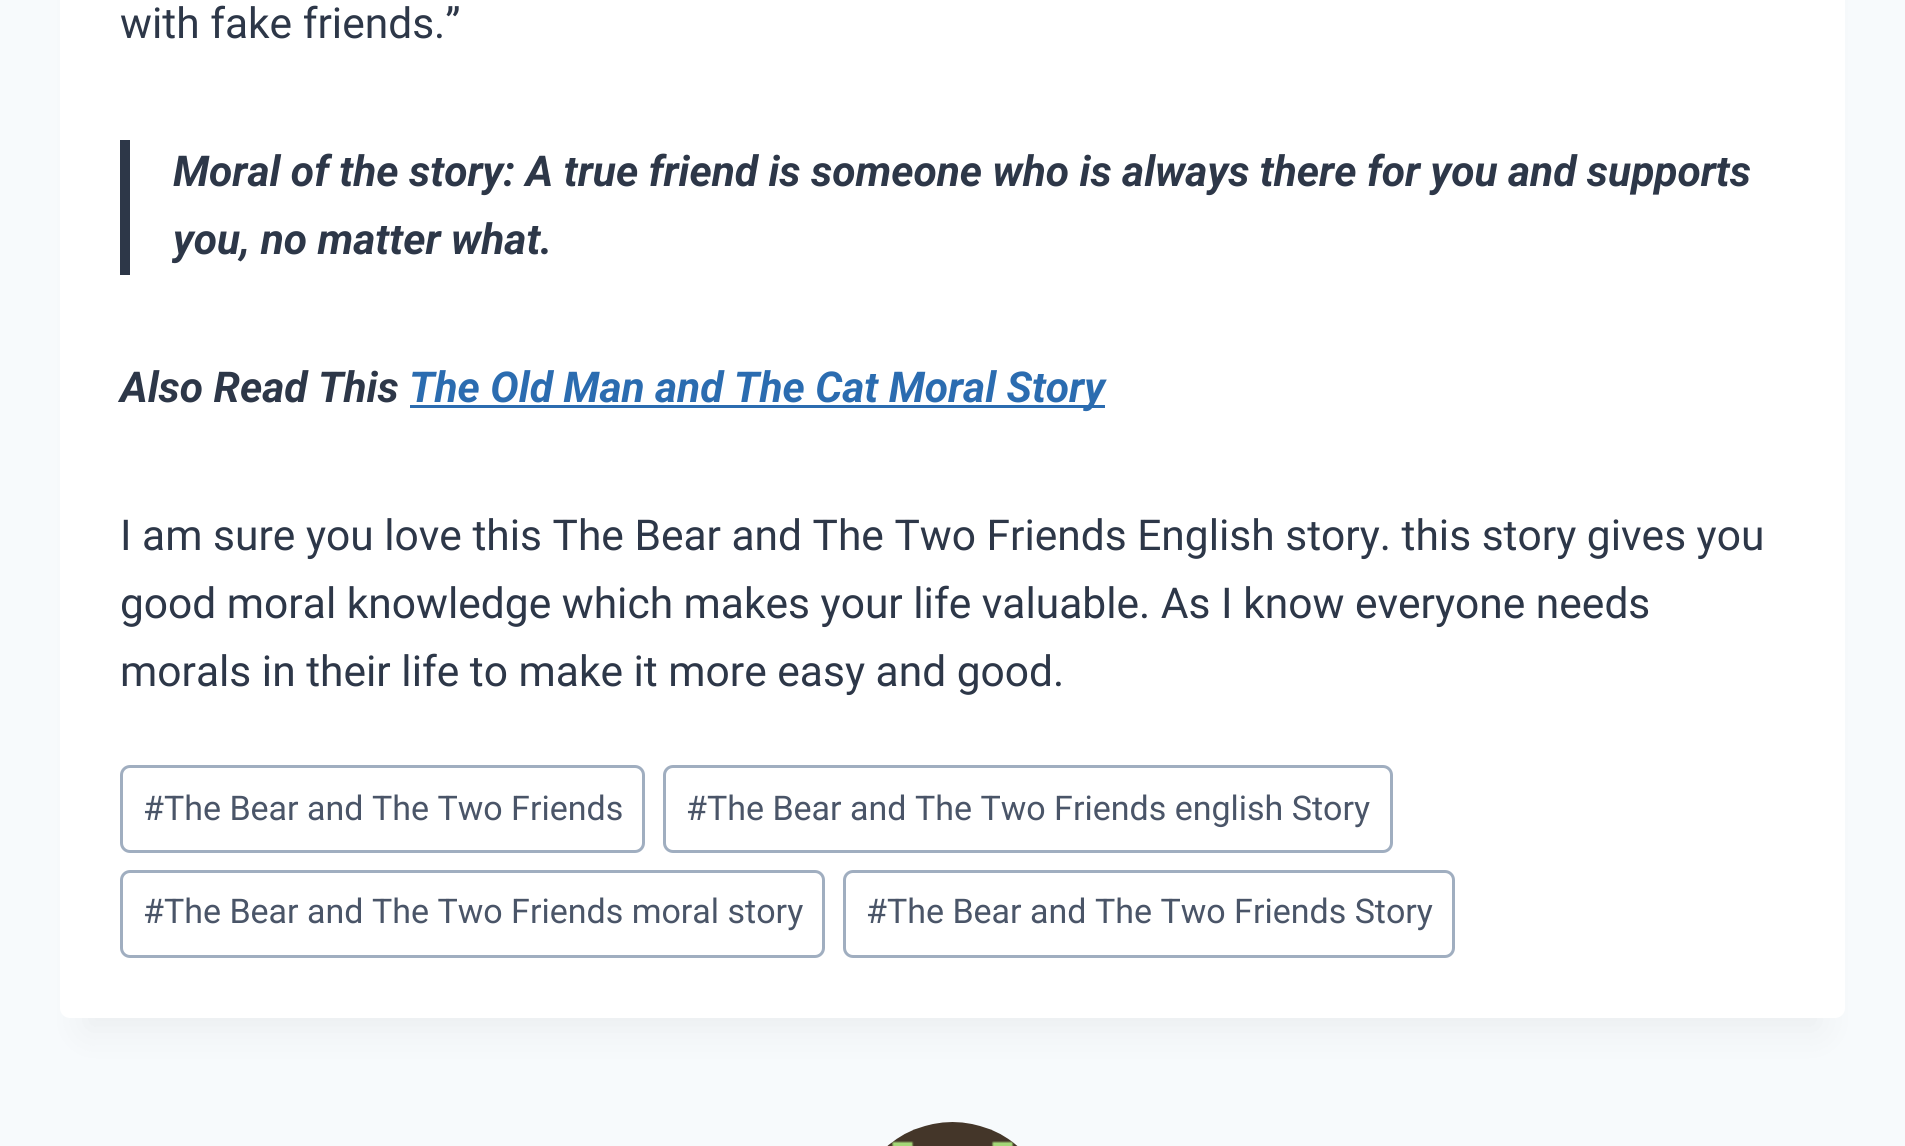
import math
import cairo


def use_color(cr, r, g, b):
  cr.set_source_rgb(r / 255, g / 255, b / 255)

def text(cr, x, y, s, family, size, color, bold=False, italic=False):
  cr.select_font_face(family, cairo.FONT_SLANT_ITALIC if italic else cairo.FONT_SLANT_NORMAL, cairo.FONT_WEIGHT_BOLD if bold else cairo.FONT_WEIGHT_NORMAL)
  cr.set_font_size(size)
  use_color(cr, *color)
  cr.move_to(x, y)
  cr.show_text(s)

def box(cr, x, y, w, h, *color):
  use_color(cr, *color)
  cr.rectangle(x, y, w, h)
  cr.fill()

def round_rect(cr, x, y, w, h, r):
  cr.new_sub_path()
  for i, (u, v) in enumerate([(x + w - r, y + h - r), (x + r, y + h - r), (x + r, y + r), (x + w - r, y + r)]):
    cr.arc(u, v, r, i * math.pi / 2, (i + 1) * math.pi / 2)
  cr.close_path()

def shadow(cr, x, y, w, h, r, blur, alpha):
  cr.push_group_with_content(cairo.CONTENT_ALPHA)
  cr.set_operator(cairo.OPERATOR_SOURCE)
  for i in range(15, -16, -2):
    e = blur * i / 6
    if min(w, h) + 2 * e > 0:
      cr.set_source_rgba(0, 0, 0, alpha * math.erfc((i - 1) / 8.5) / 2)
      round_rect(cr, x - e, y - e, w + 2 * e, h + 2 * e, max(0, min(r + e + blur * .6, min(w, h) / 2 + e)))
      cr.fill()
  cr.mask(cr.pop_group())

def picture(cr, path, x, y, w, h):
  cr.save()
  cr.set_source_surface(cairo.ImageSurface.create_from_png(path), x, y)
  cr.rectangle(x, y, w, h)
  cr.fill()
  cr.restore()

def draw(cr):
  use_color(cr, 247, 250, 252)
  cr.paint()
  use_color(cr, 0, 0, 0)
  shadow(cr, 85, -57, 1735, 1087, 0, 19, 0.05)
  use_color(cr, 255, 255, 255)
  round_rect(cr, 60, -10, 1785, 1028, 10)
  cr.fill()
  box(cr, 120, 140, 10, 135, 45, 55, 72)
  box(cr, 410, 405, 695, 3, 43, 108, 176)
  round_rect(cr, 121.5, 766.5, 522, 85, 8.5)
  use_color(cr, 160, 174, 192)
  cr.set_line_width(3)
  cr.stroke()
  round_rect(cr, 664.5, 766.5, 727, 85, 8.5)
  cr.stroke()
  round_rect(cr, 121.5, 871.5, 702, 85, 8.5)
  cr.stroke()
  round_rect(cr, 844.5, 871.5, 609, 85, 8.5)
  cr.stroke()
  picture(cr, "img_01.png", 887, 1122, 131, 24)
  text(cr, 120, 38, "with fake friends.”", "Roboto", 42.5, (45, 55, 72))
  text(cr, 173, 186, "Moral of the story: A true friend is someone who is always there for you and supports", "Roboto", 42.5, (45, 55, 72), bold=True, italic=True)
  text(cr, 173, 254, "you, no matter what.", "Roboto", 42.5, (45, 55, 72), bold=True, italic=True)
  text(cr, 120, 402, "Also Read This", "Roboto", 42.5, (45, 55, 72), bold=True, italic=True)
  text(cr, 409, 402, "The Old Man and The Cat Moral Story", "Roboto", 42.5, (43, 108, 176), bold=True, italic=True)
  text(cr, 120, 550, "I am sure you love this The Bear and The Two Friends English story. this story gives you", "Roboto", 42.5, (45, 55, 72))
  text(cr, 120, 618, "good moral knowledge which makes your life valuable. As I know everyone needs", "Roboto", 42.5, (45, 55, 72))
  text(cr, 120, 686, "morals in their life to make it more easy and good.", "Roboto", 42.5, (45, 55, 72))
  text(cr, 143, 820, "#The Bear and The Two Friends", "Roboto", 34, (74, 85, 104))
  text(cr, 686, 820, "#The Bear and The Two Friends english Story", "Roboto", 34, (74, 85, 104))
  text(cr, 143, 923, "#The Bear and The Two Friends moral story", "Roboto", 34, (74, 85, 104))
  text(cr, 866, 923, "#The Bear and The Two Friends Story", "Roboto", 34, (74, 85, 104))


surface = cairo.ImageSurface(cairo.FORMAT_RGB24, 1905, 1146)
cr = cairo.Context(surface)
options = cairo.FontOptions()
options.set_hint_metrics(cairo.HINT_METRICS_OFF)
options.set_hint_style(cairo.HINT_STYLE_NONE)
cr.set_font_options(options)
cr.set_miter_limit(4)
draw(cr)
surface.write_to_png("out.png")
